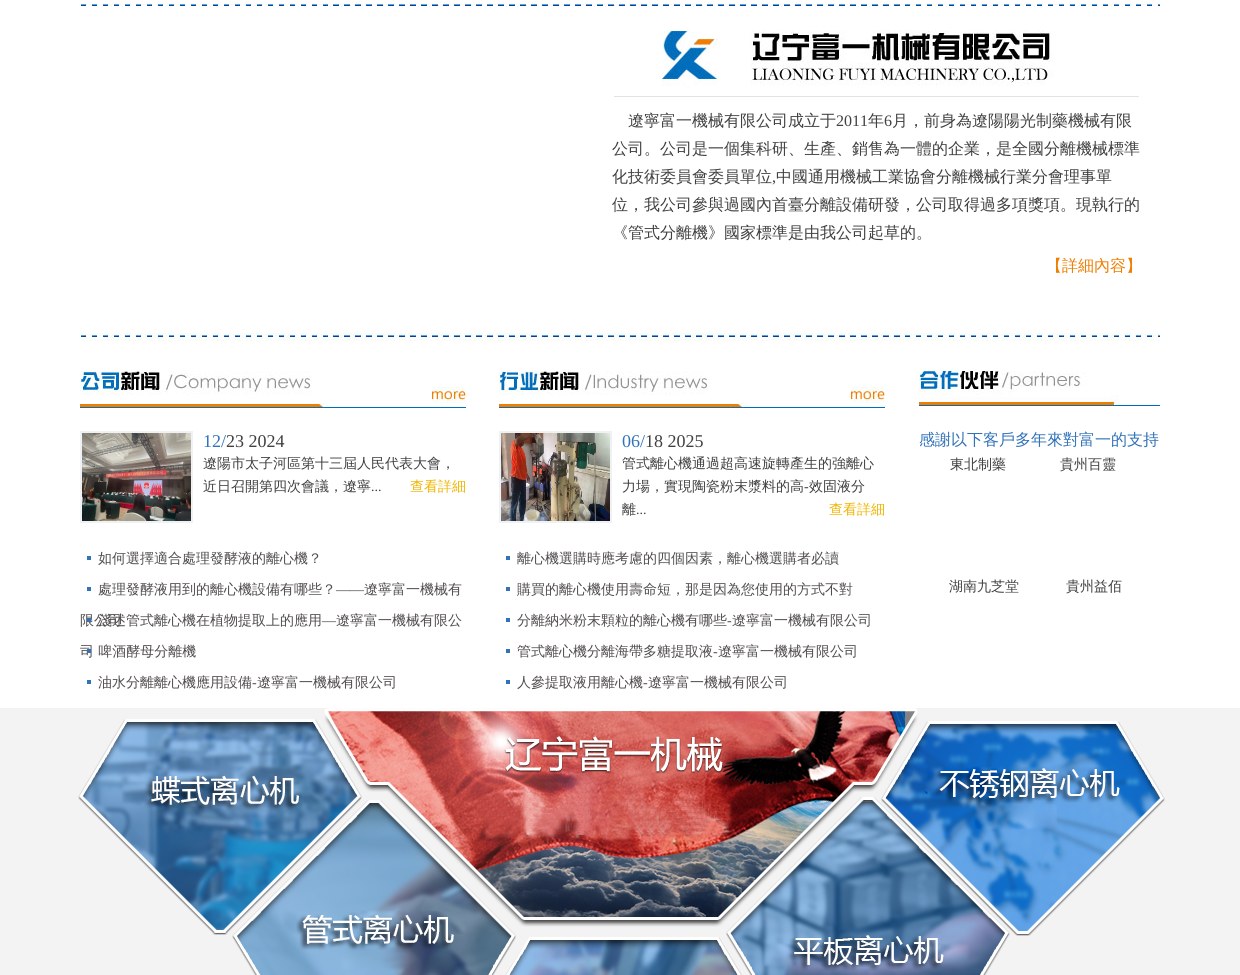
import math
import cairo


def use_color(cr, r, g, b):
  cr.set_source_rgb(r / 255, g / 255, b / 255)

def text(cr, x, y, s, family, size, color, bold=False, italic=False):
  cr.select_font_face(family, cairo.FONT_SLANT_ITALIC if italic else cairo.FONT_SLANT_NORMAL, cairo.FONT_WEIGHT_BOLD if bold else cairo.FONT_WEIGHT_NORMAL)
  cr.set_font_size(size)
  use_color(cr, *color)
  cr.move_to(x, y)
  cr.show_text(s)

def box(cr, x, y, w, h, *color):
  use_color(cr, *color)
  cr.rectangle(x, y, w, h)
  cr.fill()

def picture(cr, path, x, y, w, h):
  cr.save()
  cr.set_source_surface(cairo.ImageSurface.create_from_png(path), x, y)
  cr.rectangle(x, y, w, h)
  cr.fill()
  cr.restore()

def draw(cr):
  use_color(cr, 255, 255, 255)
  cr.paint()
  picture(cr, "img_01.png", 81, 3, 1079, 3)
  picture(cr, "img_02.png", 614, 30, 525, 67)
  picture(cr, "img_03.png", 81, 333, 1079, 8)
  picture(cr, "img_04.png", 80, 371, 386, 37)
  cr.rectangle(81, 432, 111, 90)
  use_color(cr, 238, 242, 245)
  cr.stroke()
  picture(cr, "img_05.png", 82, 433, 109, 88)
  box(cr, 87, 556, 4, 4, 50, 114, 185)
  box(cr, 87, 587, 4, 4, 50, 114, 185)
  box(cr, 87, 680, 4, 4, 50, 114, 185)
  picture(cr, "img_06.png", 499, 371, 386, 37)
  cr.rectangle(500, 432, 111, 90)
  use_color(cr, 238, 242, 245)
  cr.stroke()
  picture(cr, "img_07.png", 501, 433, 109, 88)
  box(cr, 506, 556, 4, 4, 50, 114, 185)
  box(cr, 506, 587, 4, 4, 50, 114, 185)
  box(cr, 506, 618, 4, 4, 50, 114, 185)
  box(cr, 506, 649, 4, 4, 50, 114, 185)
  box(cr, 506, 680, 4, 4, 50, 114, 185)
  picture(cr, "img_08.png", 919, 371, 241, 35)
  box(cr, 0, 708, 1240, 267, 243, 243, 243)
  picture(cr, "img_09.png", 324, 708, 594, 219)
  picture(cr, "img_10.png", 78, 719, 284, 216)
  picture(cr, "img_11.png", 232, 800, 284, 175)
  picture(cr, "img_12.png", 505, 937, 237, 38)
  picture(cr, "img_13.png", 726, 797, 284, 178)
  picture(cr, "img_14.png", 881, 721, 284, 215)
  text(cr, 628, 126, "遼寧富一機械有限公司成立于", "WenQuanYi Zen Hei Medium", 16, (64, 64, 64))
  text(cr, 836, 126, "2011", "Liberation Serif", 16, (64, 64, 64))
  text(cr, 868, 126, "年", "WenQuanYi Zen Hei Medium", 16, (64, 64, 64))
  text(cr, 884, 126, "6", "Liberation Serif", 16, (64, 64, 64))
  text(cr, 892, 126, "月，前身為遼陽陽光制藥機械有限", "WenQuanYi Zen Hei Medium", 16, (64, 64, 64))
  text(cr, 612, 154, "公司。公司是一個集科研、生產、銷售為一體的企業，是全國分離機械標準", "WenQuanYi Zen Hei Medium", 16, (64, 64, 64))
  text(cr, 612, 182, "化技術委員會委員單位", "WenQuanYi Zen Hei Medium", 16, (64, 64, 64))
  text(cr, 772, 182, ",", "Liberation Serif", 16, (64, 64, 64))
  text(cr, 776, 182, "中國通用機械工業協會分離機械行業分會理事單", "WenQuanYi Zen Hei Medium", 16, (64, 64, 64))
  text(cr, 612, 210, "位，我公司參與過國內首臺分離設備研發，公司取得過多項獎項。現執行的", "WenQuanYi Zen Hei Medium", 16, (64, 64, 64))
  text(cr, 612, 238, "《管式分離機》國家標準是由我公司起草的。", "WenQuanYi Zen Hei Medium", 16, (64, 64, 64))
  text(cr, 1046, 271, "【詳細內容】", "WenQuanYi Zen Hei Medium", 16, (238, 125, 0))
  text(cr, 203, 447, "12/", "Liberation Serif", 18, (49, 114, 184))
  text(cr, 226, 447, "23 2024", "Liberation Serif", 18, (64, 64, 64))
  text(cr, 203, 468, "遼陽市太子河區第十三屆人民代表大會，", "WenQuanYi Zen Hei Medium", 14, (64, 64, 64))
  text(cr, 203, 491, "近日召開第四次會議，遼寧", "WenQuanYi Zen Hei Medium", 14, (64, 64, 64))
  text(cr, 371, 491, "...", "Liberation Serif", 14, (64, 64, 64))
  text(cr, 410, 491, "查看詳細", "WenQuanYi Zen Hei Medium", 14, (240, 181, 1))
  text(cr, 98, 563, "如何選擇適合處理發酵液的離心機？", "WenQuanYi Zen Hei Medium", 14, (81, 77, 77))
  text(cr, 98, 594, "處理發酵液用到的離心機設備有哪些？", "WenQuanYi Zen Hei Medium", 14, (81, 77, 77))
  text(cr, 336, 594, "——", "Liberation Serif", 14, (81, 77, 77))
  text(cr, 364, 594, "遼寧富一機械有", "WenQuanYi Zen Hei Medium", 14, (81, 77, 77))
  text(cr, 80, 625, "限公司", "WenQuanYi Zen Hei Medium", 14, (81, 77, 77))
  box(cr, 87, 618, 4, 4, 50, 114, 185)
  text(cr, 98, 625, "淺述管式離心機在植物提取上的應用", "WenQuanYi Zen Hei Medium", 14, (81, 77, 77))
  text(cr, 322, 625, "—", "Liberation Serif", 14, (81, 77, 77))
  text(cr, 336, 625, "遼寧富一機械有限公", "WenQuanYi Zen Hei Medium", 14, (81, 77, 77))
  text(cr, 80, 656, "司 啤酒酵母分離機", "WenQuanYi Zen Hei Medium", 14, (81, 77, 77))
  box(cr, 87, 649, 4, 4, 50, 114, 185)
  text(cr, 98, 687, "油水分離離心機應用設備", "WenQuanYi Zen Hei Medium", 14, (81, 77, 77))
  text(cr, 252, 687, "-", "Liberation Serif", 14, (81, 77, 77))
  text(cr, 257, 687, "遼寧富一機械有限公司", "WenQuanYi Zen Hei Medium", 14, (81, 77, 77))
  text(cr, 622, 447, "06/", "Liberation Serif", 18, (49, 114, 184))
  text(cr, 645, 447, "18 2025", "Liberation Serif", 18, (64, 64, 64))
  text(cr, 622, 468, "管式離心機通過超高速旋轉產生的強離心", "WenQuanYi Zen Hei Medium", 14, (64, 64, 64))
  text(cr, 622, 491, "力場，實現陶瓷粉末漿料的高", "WenQuanYi Zen Hei Medium", 14, (64, 64, 64))
  text(cr, 804, 491, "-", "Liberation Serif", 14, (64, 64, 64))
  text(cr, 809, 491, "效固液分", "WenQuanYi Zen Hei Medium", 14, (64, 64, 64))
  text(cr, 622, 514, "離", "WenQuanYi Zen Hei Medium", 14, (64, 64, 64))
  text(cr, 636, 514, "...", "Liberation Serif", 14, (64, 64, 64))
  text(cr, 829, 514, "查看詳細", "WenQuanYi Zen Hei Medium", 14, (240, 181, 1))
  text(cr, 517, 563, "離心機選購時應考慮的四個因素，離心機選購者必讀", "WenQuanYi Zen Hei Medium", 14, (81, 77, 77))
  text(cr, 517, 594, "購買的離心機使用壽命短，那是因為您使用的方式不對", "WenQuanYi Zen Hei Medium", 14, (81, 77, 77))
  text(cr, 517, 625, "分離納米粉末顆粒的離心機有哪些", "WenQuanYi Zen Hei Medium", 14, (81, 77, 77))
  text(cr, 727, 625, "-", "Liberation Serif", 14, (81, 77, 77))
  text(cr, 732, 625, "遼寧富一機械有限公司", "WenQuanYi Zen Hei Medium", 14, (81, 77, 77))
  text(cr, 517, 656, "管式離心機分離海帶多糖提取液", "WenQuanYi Zen Hei Medium", 14, (81, 77, 77))
  text(cr, 713, 656, "-", "Liberation Serif", 14, (81, 77, 77))
  text(cr, 718, 656, "遼寧富一機械有限公司", "WenQuanYi Zen Hei Medium", 14, (81, 77, 77))
  text(cr, 517, 687, "人參提取液用離心機", "WenQuanYi Zen Hei Medium", 14, (81, 77, 77))
  text(cr, 643, 687, "-", "Liberation Serif", 14, (81, 77, 77))
  text(cr, 648, 687, "遼寧富一機械有限公司", "WenQuanYi Zen Hei Medium", 14, (81, 77, 77))
  text(cr, 919, 445, "感謝以下客戶多年來對富一的支持", "WenQuanYi Zen Hei Medium", 16, (49, 114, 184))
  text(cr, 950, 469, "東北制藥", "WenQuanYi Zen Hei Medium", 14, (64, 64, 64))
  text(cr, 1060, 469, "貴州百靈", "WenQuanYi Zen Hei Medium", 14, (64, 64, 64))
  text(cr, 949, 591, "湖南九芝堂", "WenQuanYi Zen Hei Medium", 14, (64, 64, 64))
  text(cr, 1066, 591, "貴州益佰", "WenQuanYi Zen Hei Medium", 14, (64, 64, 64))


surface = cairo.ImageSurface(cairo.FORMAT_RGB24, 1240, 975)
cr = cairo.Context(surface)
options = cairo.FontOptions()
options.set_hint_metrics(cairo.HINT_METRICS_OFF)
options.set_hint_style(cairo.HINT_STYLE_NONE)
cr.set_font_options(options)
cr.set_miter_limit(4)
draw(cr)
surface.write_to_png("out.png")
